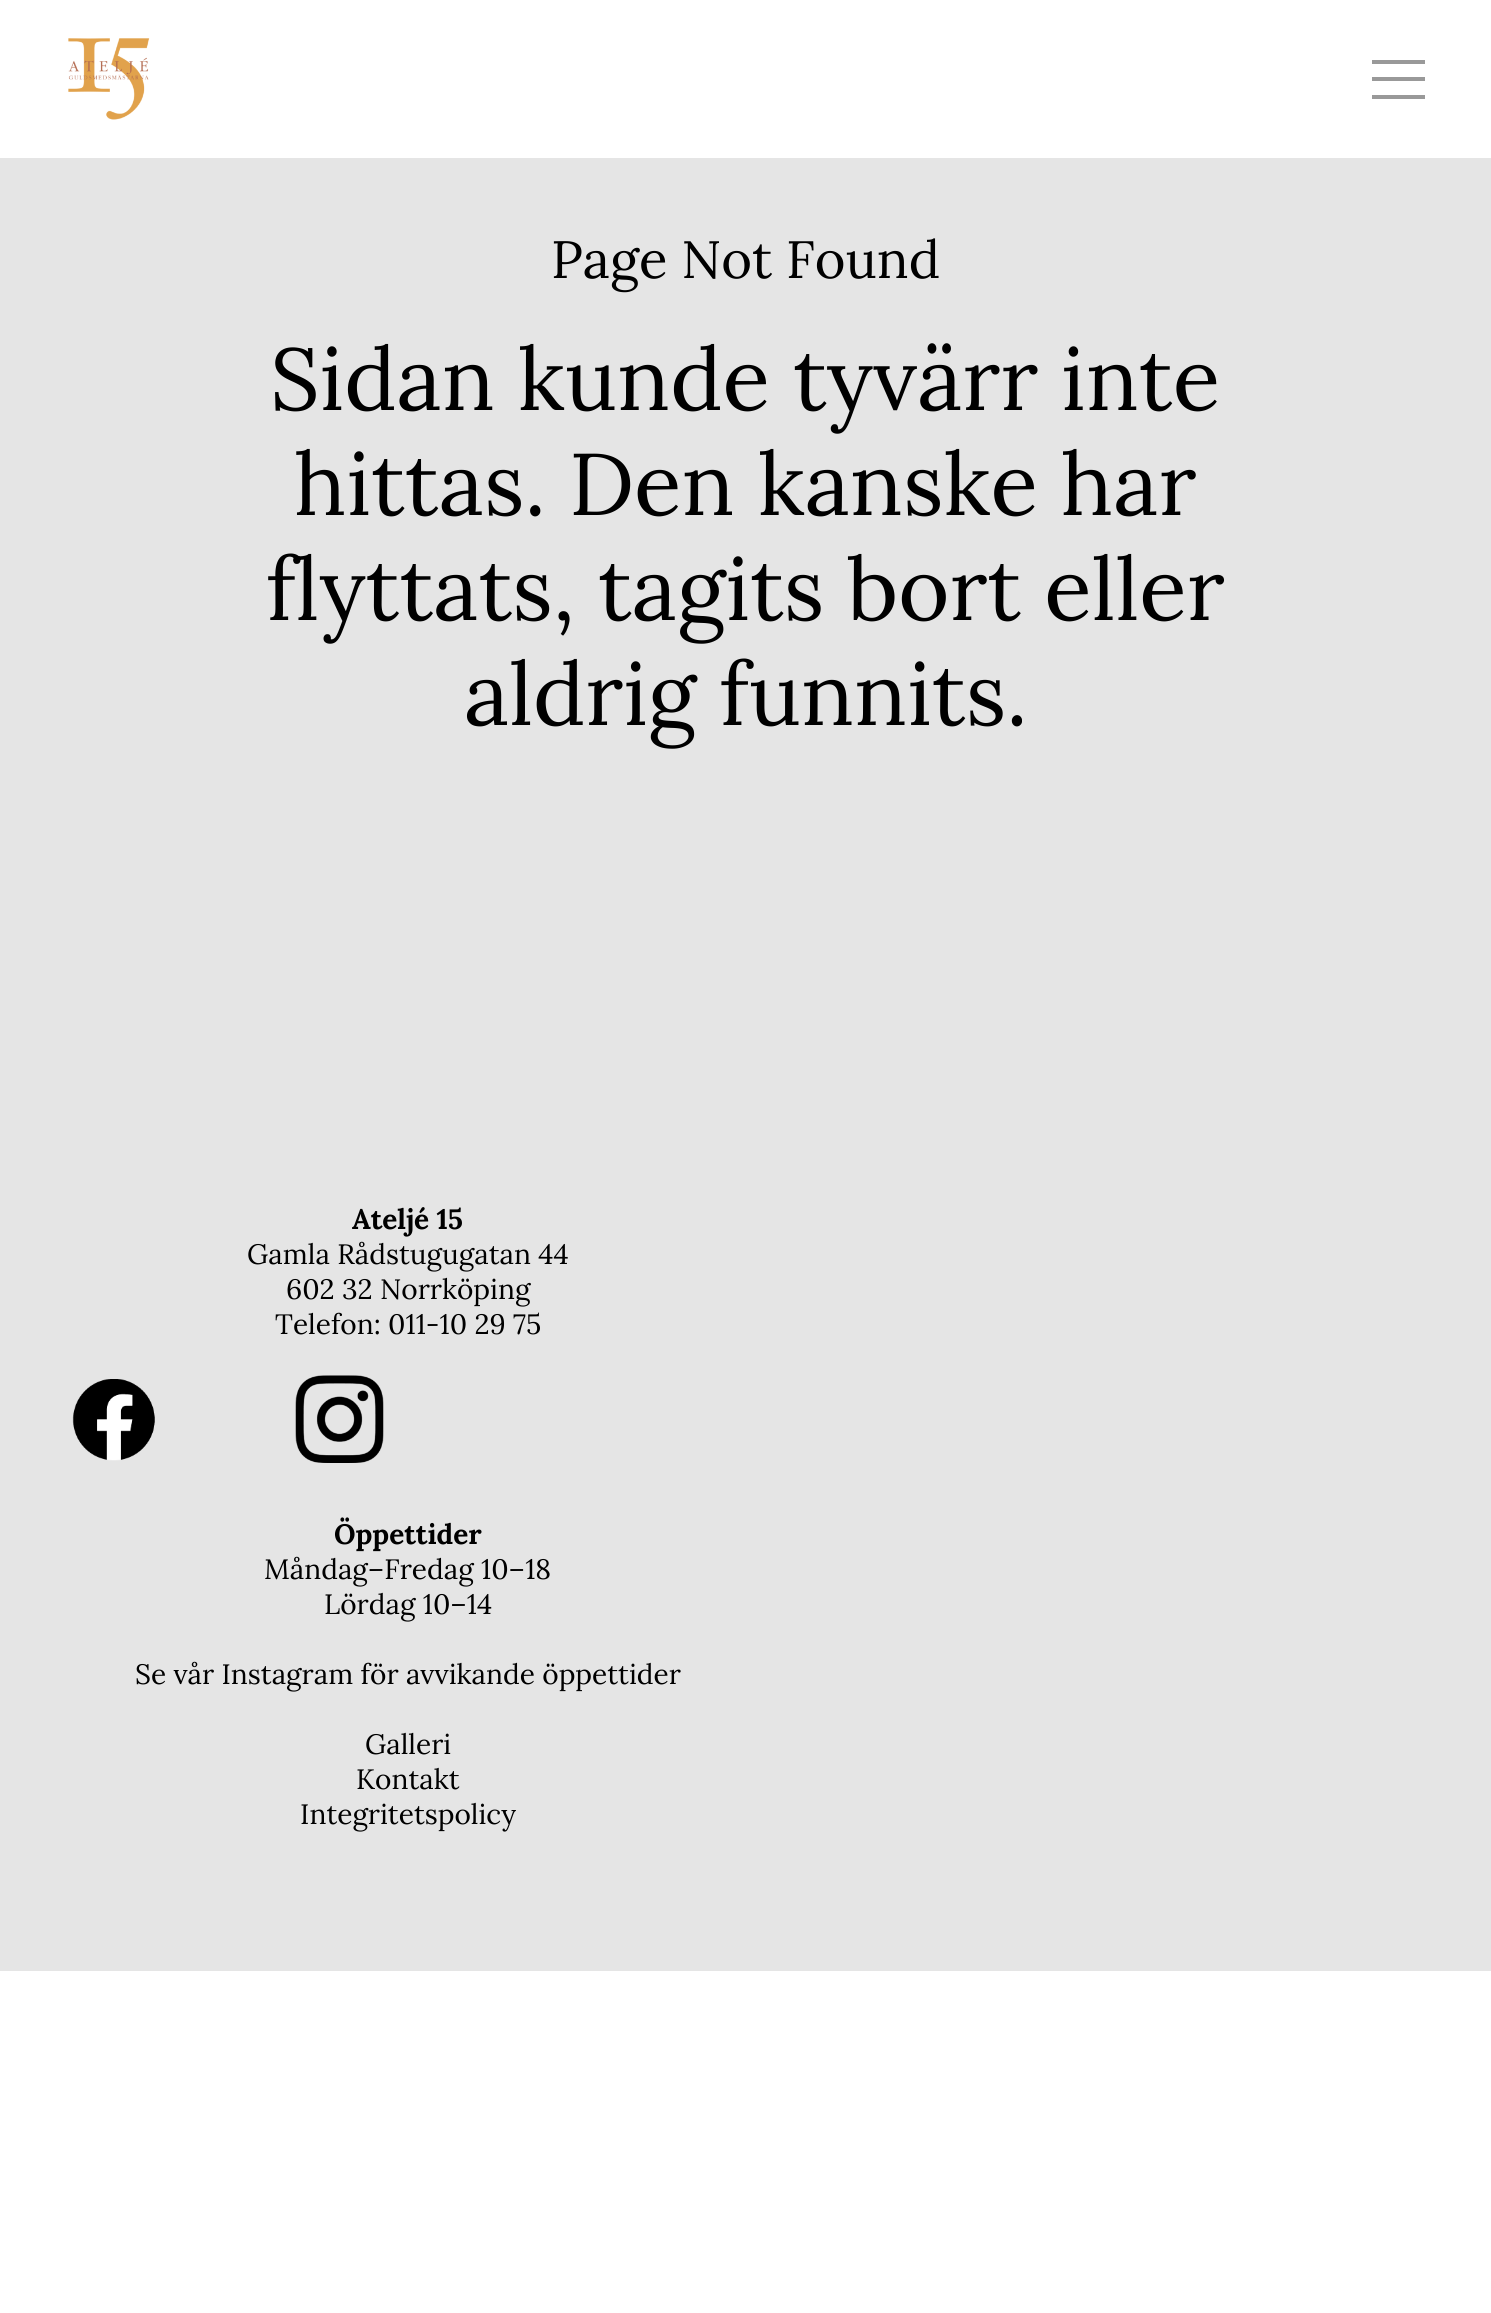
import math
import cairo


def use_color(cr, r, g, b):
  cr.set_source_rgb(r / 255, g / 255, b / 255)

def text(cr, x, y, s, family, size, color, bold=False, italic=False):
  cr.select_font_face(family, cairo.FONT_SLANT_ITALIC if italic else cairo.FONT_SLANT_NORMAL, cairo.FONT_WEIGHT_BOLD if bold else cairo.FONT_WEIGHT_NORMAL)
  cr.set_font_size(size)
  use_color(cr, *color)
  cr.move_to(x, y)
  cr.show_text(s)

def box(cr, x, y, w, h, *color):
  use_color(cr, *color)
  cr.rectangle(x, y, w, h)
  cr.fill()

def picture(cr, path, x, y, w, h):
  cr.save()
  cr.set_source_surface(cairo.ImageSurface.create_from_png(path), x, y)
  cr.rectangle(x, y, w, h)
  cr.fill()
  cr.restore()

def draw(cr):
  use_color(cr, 255, 255, 255)
  cr.paint()
  picture(cr, "img_01.png", 68, 38, 82, 82)
  box(cr, 1372, 77, 53, 4, 153, 153, 153)
  box(cr, 1372, 60, 53, 4, 153, 153, 153)
  box(cr, 1372, 95, 53, 4, 153, 153, 153)
  box(cr, 0, 158, 1491, 1813, 229, 229, 229)
  picture(cr, "img_02.png", 72, 1379, 83, 82)
  picture(cr, "img_03.png", 295, 1375, 89, 88)
  text(cr, 551, 278, "Page Not Found", "Lora", 52.5, (0, 0, 0))
  text(cr, 270, 410, "Sidan kunde tyvärr inte", "Lora", 87.5, (0, 0, 0))
  text(cr, 294, 515, "hittas. Den kanske har", "Lora", 87.5, (0, 0, 0))
  text(cr, 266, 620, "flyttats, tagits bort eller", "Lora", 87.5, (0, 0, 0))
  text(cr, 464, 725, "aldrig funnits.", "Lora", 87.5, (0, 0, 0))
  text(cr, 352, 1229, "Ateljé 15", "Lora", 28, (0, 0, 0), bold=True)
  text(cr, 247, 1264, "Gamla Rådstugugatan 44", "Lora", 28, (0, 0, 0))
  text(cr, 286, 1299, "602 32 Norrköping", "Lora", 28, (0, 0, 0))
  text(cr, 275, 1334, "Telefon: 011-10 29 75", "Lora", 28, (0, 0, 0))
  text(cr, 334, 1544, "Öppettider", "Lora", 28, (0, 0, 0), bold=True)
  text(cr, 264, 1579, "Måndag–Fredag 10–18", "Lora", 28, (0, 0, 0))
  text(cr, 324, 1614, "Lördag 10–14", "Lora", 28, (0, 0, 0))
  text(cr, 135, 1684, "Se vår Instagram för avvikande öppettider", "Lora", 28, (0, 0, 0))
  text(cr, 365, 1754, "Galleri", "Lora", 28, (0, 0, 0))
  text(cr, 356, 1789, "Kontakt", "Lora", 28, (0, 0, 0))
  text(cr, 300, 1824, "Integritetspolicy", "Lora", 28, (0, 0, 0))


surface = cairo.ImageSurface(cairo.FORMAT_RGB24, 1491, 2313)
cr = cairo.Context(surface)
options = cairo.FontOptions()
options.set_hint_metrics(cairo.HINT_METRICS_OFF)
options.set_hint_style(cairo.HINT_STYLE_NONE)
cr.set_font_options(options)
cr.set_miter_limit(4)
draw(cr)
surface.write_to_png("out.png")
